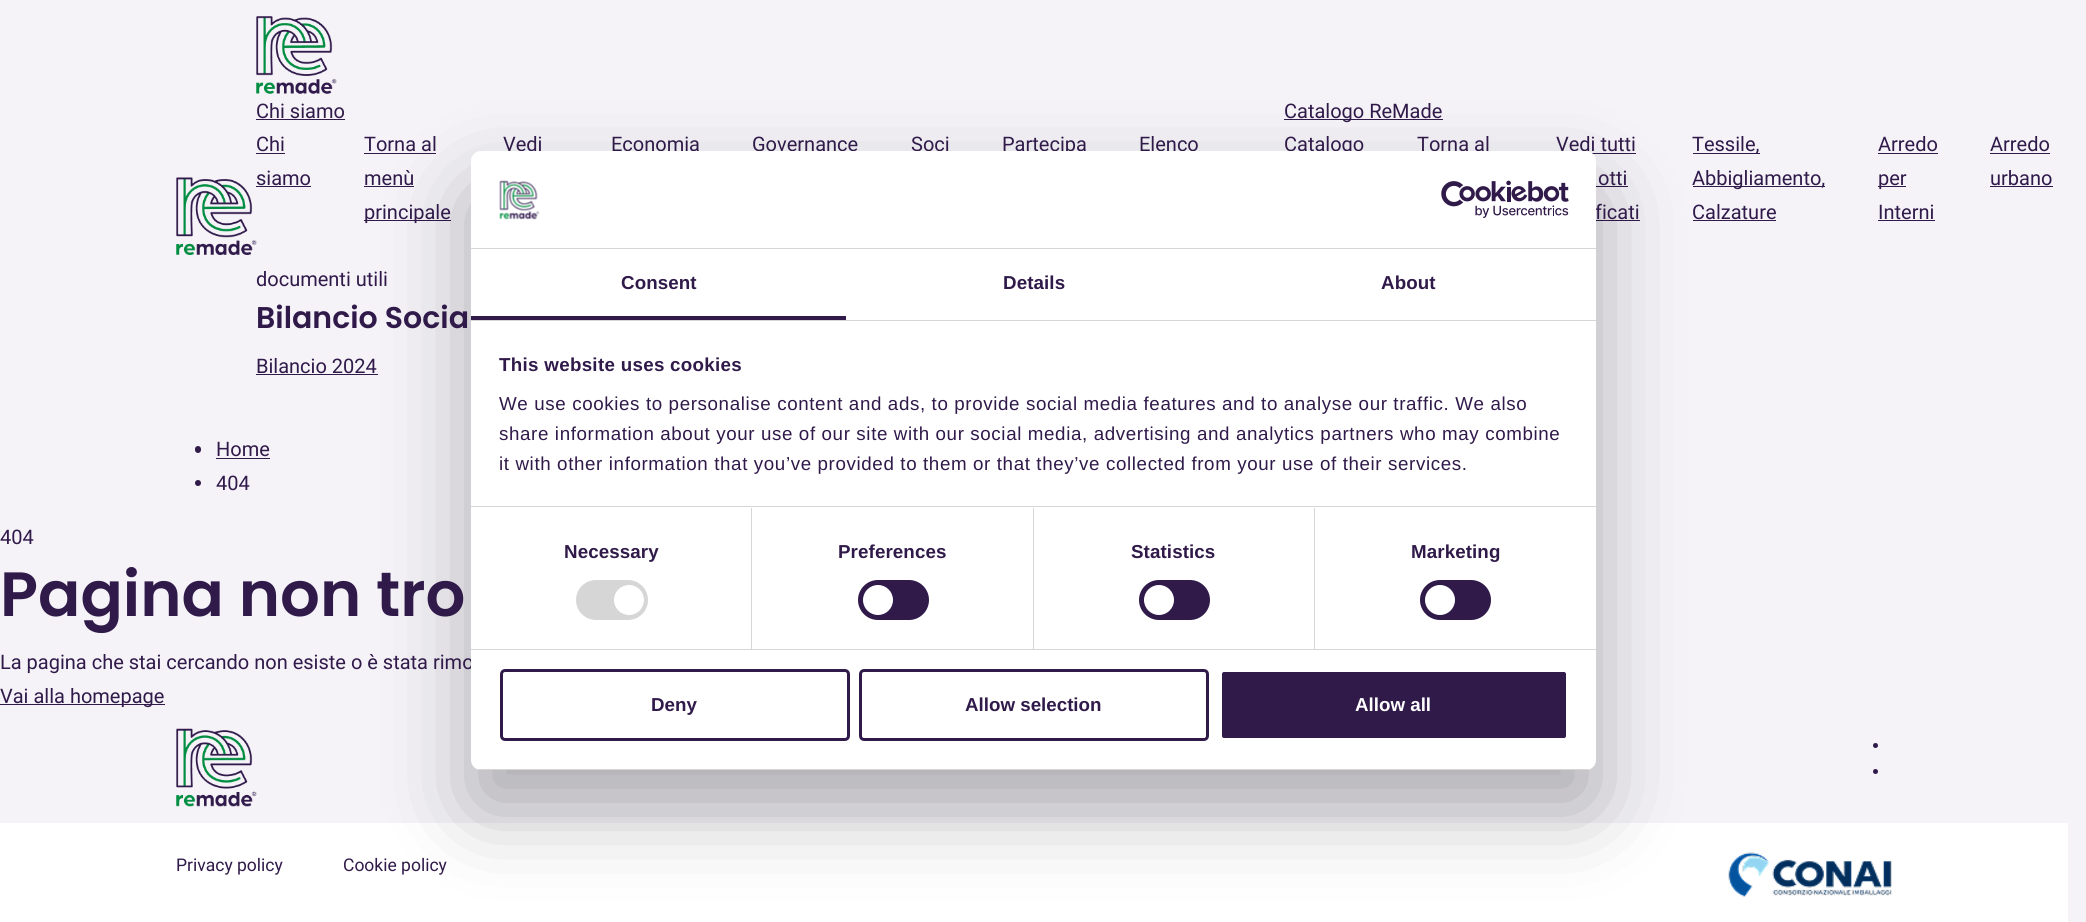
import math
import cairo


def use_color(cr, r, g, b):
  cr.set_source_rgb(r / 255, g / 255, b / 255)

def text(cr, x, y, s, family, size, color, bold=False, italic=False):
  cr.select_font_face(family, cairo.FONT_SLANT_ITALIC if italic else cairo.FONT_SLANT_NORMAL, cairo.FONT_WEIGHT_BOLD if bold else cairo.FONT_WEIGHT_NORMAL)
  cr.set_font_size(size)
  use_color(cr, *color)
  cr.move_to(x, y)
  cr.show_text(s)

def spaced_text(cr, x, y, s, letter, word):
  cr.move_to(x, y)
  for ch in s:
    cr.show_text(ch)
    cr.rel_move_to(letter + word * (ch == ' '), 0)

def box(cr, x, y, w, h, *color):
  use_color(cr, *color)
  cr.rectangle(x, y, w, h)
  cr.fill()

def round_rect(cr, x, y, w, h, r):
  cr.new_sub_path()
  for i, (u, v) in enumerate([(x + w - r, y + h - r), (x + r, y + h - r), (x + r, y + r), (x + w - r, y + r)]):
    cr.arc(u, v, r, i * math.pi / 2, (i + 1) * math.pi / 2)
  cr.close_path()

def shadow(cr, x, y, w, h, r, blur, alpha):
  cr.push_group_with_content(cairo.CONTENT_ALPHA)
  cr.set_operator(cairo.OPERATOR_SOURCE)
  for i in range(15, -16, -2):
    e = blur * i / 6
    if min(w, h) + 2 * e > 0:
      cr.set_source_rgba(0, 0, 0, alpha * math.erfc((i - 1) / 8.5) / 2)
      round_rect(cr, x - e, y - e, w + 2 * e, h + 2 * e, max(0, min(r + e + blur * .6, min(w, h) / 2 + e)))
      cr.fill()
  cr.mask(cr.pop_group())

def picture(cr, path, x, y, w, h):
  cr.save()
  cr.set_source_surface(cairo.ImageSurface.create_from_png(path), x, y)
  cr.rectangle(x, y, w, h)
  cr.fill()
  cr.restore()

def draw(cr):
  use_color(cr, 245, 243, 248)
  cr.paint()
  picture(cr, "img_01.png", 176, 177, 81, 78)
  picture(cr, "img_02.png", 256, 16, 81, 78)
  box(cr, 256, 119, 89, 1, 48, 26, 74)
  box(cr, 256, 153, 29, 1, 48, 26, 74)
  box(cr, 256, 186, 55, 1, 48, 26, 74)
  box(cr, 364, 153, 72, 1, 48, 26, 74)
  box(cr, 364, 186, 50, 1, 48, 26, 74)
  box(cr, 364, 220, 87, 1, 48, 26, 74)
  box(cr, 256, 374, 122, 1, 48, 26, 74)
  box(cr, 1284, 119, 159, 1, 48, 26, 74)
  box(cr, 1592, 153, 44, 1, 48, 26, 74)
  box(cr, 1596, 186, 32, 1, 48, 26, 74)
  box(cr, 1596, 220, 44, 1, 48, 26, 74)
  box(cr, 1693, 153, 67, 1, 48, 26, 74)
  box(cr, 1693, 186, 132, 1, 48, 26, 74)
  box(cr, 1693, 220, 83, 1, 48, 26, 74)
  box(cr, 1878, 153, 60, 1, 48, 26, 74)
  box(cr, 1878, 186, 28, 1, 48, 26, 74)
  box(cr, 1878, 220, 57, 1, 48, 26, 74)
  box(cr, 1990, 153, 60, 1, 48, 26, 74)
  box(cr, 1990, 186, 63, 1, 48, 26, 74)
  round_rect(cr, 195, 446, 6, 7, 3)
  cr.fill()
  box(cr, 216, 458, 54, 1, 48, 26, 74)
  cr.arc(198, 483, 3, 0, 2 * math.pi)
  cr.fill()
  box(cr, 0, 823, 2068, 99, 255, 255, 255)
  use_color(cr, 0, 0, 0)
  shadow(cr, 471, 191, 1125, 619, 10, 42.5, 0.3)
  box(cr, 0, 704, 165, 1, 48, 26, 74)
  picture(cr, "img_05.png", 176, 728, 81, 79)
  cr.arc(1875.5, 745.5, 2.5, 0, 2 * math.pi)
  cr.fill()
  cr.arc(1875.5, 771.5, 2.5, 0, 2 * math.pi)
  cr.fill()
  picture(cr, "img_06.png", 1728, 852, 164, 45)
  text(cr, 256, 118, "Chi siamo", "Roboto", 20, (48, 26, 74))
  text(cr, 256, 151, "Chi", "Roboto", 20, (48, 26, 74))
  text(cr, 256, 185, "siamo", "Roboto", 20, (48, 26, 74))
  text(cr, 364, 151, "Torna al", "Roboto", 20, (48, 26, 74))
  text(cr, 364, 185, "menù", "Roboto", 20, (48, 26, 74))
  text(cr, 364, 219, "principale", "Roboto", 20, (48, 26, 74))
  text(cr, 503, 151, "Vedi", "Roboto", 20, (48, 26, 74))
  text(cr, 611, 151, "Economia", "Roboto", 20, (48, 26, 74))
  text(cr, 752, 151, "Governance", "Roboto", 20, (48, 26, 74))
  text(cr, 911, 151, "Soci", "Roboto", 20, (48, 26, 74))
  text(cr, 1002, 151, "Partecipa", "Roboto", 20, (48, 26, 74))
  text(cr, 1139, 151, "Elenco", "Roboto", 20, (48, 26, 74))
  text(cr, 256, 286, "documenti utili", "Roboto", 20, (48, 26, 74))
  text(cr, 256, 328, "Bilancio Socia", "Poppins SemiBold", 30, (48, 26, 74))
  text(cr, 256, 373, "Bilancio 2024", "Roboto", 20, (48, 26, 74))
  text(cr, 1284, 118, "Catalogo ReMade", "Roboto", 20, (48, 26, 74))
  text(cr, 1284, 151, "Catalogo", "Roboto", 20, (48, 26, 74))
  text(cr, 1417, 151, "Torna al", "Roboto", 20, (48, 26, 74))
  text(cr, 1556, 151, "Vedi tutti", "Roboto", 20, (48, 26, 74))
  text(cr, 1598, 185, "otti", "Roboto", 20, (48, 26, 74))
  text(cr, 1595, 219, "ficati", "Roboto", 20, (48, 26, 74))
  text(cr, 1692, 151, "Tessile,", "Roboto", 20, (48, 26, 74))
  text(cr, 1692, 185, "Abbigliamento,", "Roboto", 20, (48, 26, 74))
  text(cr, 1692, 219, "Calzature", "Roboto", 20, (48, 26, 74))
  text(cr, 1878, 151, "Arredo", "Roboto", 20, (48, 26, 74))
  text(cr, 1878, 185, "per", "Roboto", 20, (48, 26, 74))
  text(cr, 1878, 219, "Interni", "Roboto", 20, (48, 26, 74))
  text(cr, 1990, 151, "Arredo", "Roboto", 20, (48, 26, 74))
  text(cr, 1990, 185, "urbano", "Roboto", 20, (48, 26, 74))
  text(cr, 216, 456, "Home", "Roboto", 20, (48, 26, 74))
  text(cr, 216, 490, "404", "Roboto", 20, (48, 26, 74))
  text(cr, 0, 544, "404", "Roboto", 20, (48, 26, 74))
  text(cr, 0, 616, "Pagina non tro", "Poppins SemiBold", 62.5, (48, 26, 74))
  text(cr, 0, 669, "La pagina che stai cercando non esiste o è stata rimo", "Roboto", 20, (48, 26, 74))
  use_color(cr, 255, 255, 255)
  round_rect(cr, 471, 151, 1125, 619, 10)
  cr.fill()
  use_color(cr, 48, 26, 74)
  round_rect(cr, 1220.5, 670.5, 347, 69, 3.5)
  cr.fill_preserve()
  use_color(cr, 255, 255, 255)
  cr.set_line_width(3)
  cr.stroke()
  text(cr, 1355, 711, "Allow all", "Liberation Sans", 18.75, (255, 255, 255), bold=True)
  round_rect(cr, 860.5, 670.5, 347, 69, 3.5)
  use_color(cr, 48, 26, 74)
  cr.stroke()
  text(cr, 965, 711, "Allow selection", "Liberation Sans", 18.75, (48, 26, 74), bold=True)
  round_rect(cr, 501.5, 670.5, 347, 69, 3.5)
  cr.stroke()
  text(cr, 651, 711, "Deny", "Liberation Sans", 18.75, (48, 26, 74), bold=True)
  cr.save()
  round_rect(cr, 471, 151, 1125, 619, 10)
  cr.clip()
  box(cr, 471, 769, 1125, 1, 214, 214, 214)
  cr.restore()
  round_rect(cr, 1420, 580, 71, 40, 20)
  cr.fill()
  use_color(cr, 255, 255, 255)
  cr.arc(1440, 600, 15, 0, 2 * math.pi)
  cr.fill()
  use_color(cr, 48, 26, 74)
  round_rect(cr, 1139, 580, 71, 40, 20)
  cr.fill()
  use_color(cr, 255, 255, 255)
  cr.arc(1159, 600, 15, 0, 2 * math.pi)
  cr.fill()
  use_color(cr, 48, 26, 74)
  round_rect(cr, 858, 580, 71, 40, 20)
  cr.fill()
  use_color(cr, 255, 255, 255)
  cr.arc(878, 600, 15, 0, 2 * math.pi)
  cr.fill()
  use_color(cr, 214, 214, 214)
  round_rect(cr, 576, 580, 72, 40, 20)
  cr.fill()
  use_color(cr, 255, 255, 255)
  cr.arc(629, 600, 15, 0, 2 * math.pi)
  cr.fill()
  cr.select_font_face("Liberation Sans")
  use_color(cr, 48, 26, 74)
  spaced_text(cr, 499, 470, "it with other information that you’ve provided to them or that they’ve collected from your use of their services.", 0.62, 0)
  spaced_text(cr, 499, 440, "share information about your use of our site with our social media, advertising and analytics partners who may combine", 0.62, 0)
  spaced_text(cr, 499, 410, "We use cookies to personalise content and ads, to provide social media features and to analyse our traffic. We also", 0.62, 0)
  cr.select_font_face("Liberation Sans", cairo.FONT_SLANT_NORMAL, cairo.FONT_WEIGHT_BOLD)
  spaced_text(cr, 499, 371, "This website uses cookies", 0.3, 0)
  box(cr, 471, 506, 1125, 1, 214, 214, 214)
  use_color(cr, 48, 26, 74)
  spaced_text(cr, 1381, 289, "About", 0.1, 0)
  spaced_text(cr, 1003, 289, "Details", 0.1, 0)
  spaced_text(cr, 621, 289, "Consent", 0.1, 0)
  box(cr, 471, 316, 375, 4, 48, 26, 74)
  box(cr, 471, 320, 1125, 1, 214, 214, 214)
  use_color(cr, 48, 26, 74)
  spaced_text(cr, 1411, 558, "Marketing", 0.1, 0)
  spaced_text(cr, 1131, 558, "Statistics", 0.1, 0)
  box(cr, 1314, 508, 1, 141, 214, 214, 214)
  use_color(cr, 48, 26, 74)
  spaced_text(cr, 838, 558, "Preferences", 0.1, 0)
  box(cr, 1033, 508, 1, 141, 214, 214, 214)
  use_color(cr, 48, 26, 74)
  spaced_text(cr, 564, 558, "Necessary", 0.1, 0)
  box(cr, 751, 508, 1, 141, 214, 214, 214)
  box(cr, 471, 649, 1125, 1, 214, 214, 214)
  picture(cr, "img_04.png", 1441, 180, 128, 38)
  picture(cr, "img_03.png", 499, 180, 41, 40)
  box(cr, 471, 248, 1125, 1, 214, 214, 214)
  text(cr, 0, 703, "Vai alla homepage", "Roboto", 20, (48, 26, 74))
  text(cr, 176, 871, "Privacy policy", "Roboto", 17.5, (48, 26, 74))
  text(cr, 343, 871, "Cookie policy", "Roboto", 17.5, (48, 26, 74))


surface = cairo.ImageSurface(cairo.FORMAT_RGB24, 2086, 922)
cr = cairo.Context(surface)
options = cairo.FontOptions()
options.set_hint_metrics(cairo.HINT_METRICS_OFF)
options.set_hint_style(cairo.HINT_STYLE_NONE)
cr.set_font_options(options)
cr.set_miter_limit(4)
draw(cr)
surface.write_to_png("out.png")
